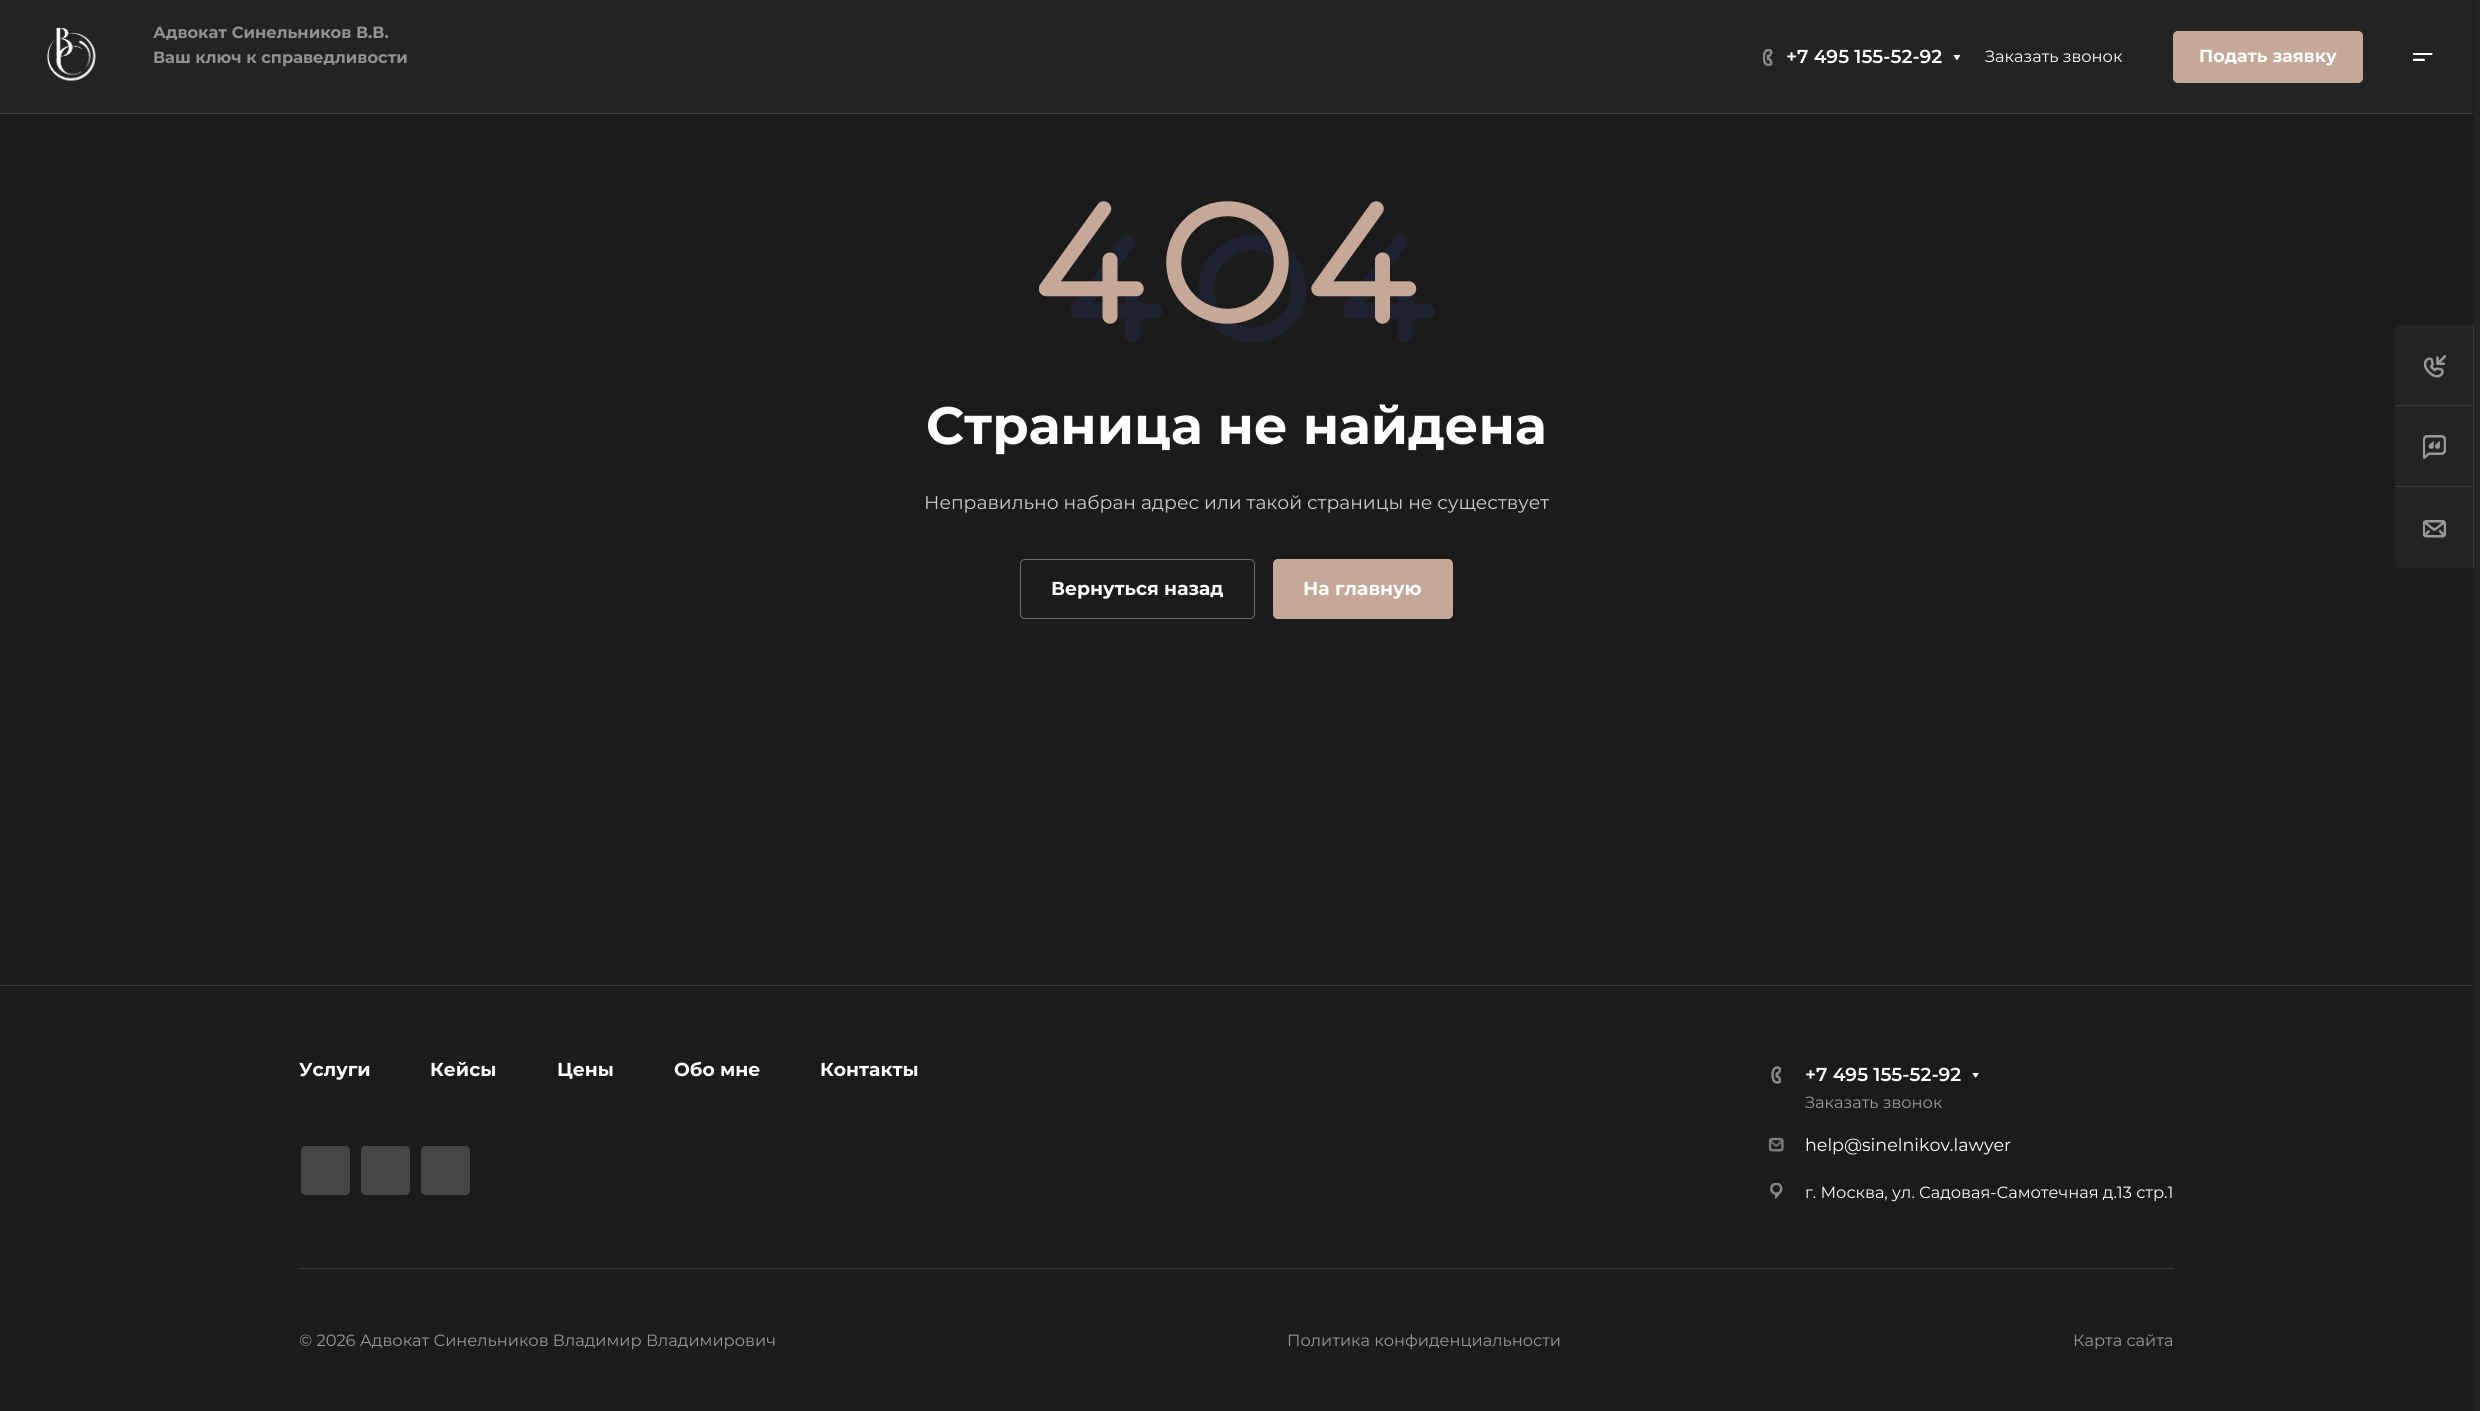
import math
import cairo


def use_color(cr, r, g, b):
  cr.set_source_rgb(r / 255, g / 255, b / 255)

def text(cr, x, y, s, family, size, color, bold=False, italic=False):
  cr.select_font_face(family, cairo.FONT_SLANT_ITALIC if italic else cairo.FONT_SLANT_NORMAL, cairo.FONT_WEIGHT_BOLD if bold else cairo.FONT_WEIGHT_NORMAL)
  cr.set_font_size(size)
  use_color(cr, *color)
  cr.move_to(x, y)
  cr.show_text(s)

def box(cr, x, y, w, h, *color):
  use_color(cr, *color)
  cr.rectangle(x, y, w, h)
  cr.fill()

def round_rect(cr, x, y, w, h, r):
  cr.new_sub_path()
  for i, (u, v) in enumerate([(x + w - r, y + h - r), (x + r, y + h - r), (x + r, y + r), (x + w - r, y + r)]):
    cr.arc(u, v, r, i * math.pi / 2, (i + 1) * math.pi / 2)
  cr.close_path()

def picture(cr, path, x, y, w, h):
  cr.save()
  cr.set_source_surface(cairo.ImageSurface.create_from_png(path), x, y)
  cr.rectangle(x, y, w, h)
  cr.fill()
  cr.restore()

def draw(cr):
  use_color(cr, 27, 27, 27)
  cr.paint()
  box(cr, 0, 0, 2473, 113, 35, 35, 35)
  box(cr, 0, 113, 2473, 1, 58, 58, 58)
  picture(cr, "img_01.png", 47, 27, 49, 54)
  picture(cr, "img_02.png", 1763, 49, 10, 17)
  picture(cr, "img_03.png", 1953, 55, 7, 5)
  use_color(cr, 197, 168, 151)
  round_rect(cr, 2173.5, 31.5, 189, 51, 4.5)
  cr.fill_preserve()
  cr.set_line_width(1)
  cr.stroke()
  picture(cr, "img_04.png", 2413, 53, 20, 8)
  picture(cr, "img_05.png", 1039, 201, 396, 142)
  round_rect(cr, 1020.5, 559.5, 234, 59, 4.5)
  use_color(cr, 107, 107, 107)
  cr.stroke()
  use_color(cr, 197, 168, 151)
  round_rect(cr, 1273.5, 559.5, 179, 59, 4.5)
  cr.fill_preserve()
  cr.stroke()
  box(cr, 2474, 0, 6, 1411, 35, 35, 35)
  cr.new_path()
  cr.move_to(2400, 325)
  cr.line_to(2474, 325)
  cr.line_to(2474, 568)
  cr.line_to(2400, 568)
  cr.curve_to(2397, 568, 2395, 566, 2395, 563)
  cr.line_to(2395, 330)
  cr.curve_to(2395, 327, 2397, 325, 2400, 325)
  cr.close_path()
  cr.fill()
  picture(cr, "img_06.png", 2424, 355, 22, 23)
  box(cr, 2395, 405, 79, 1, 58, 58, 58)
  box(cr, 2395, 486, 79, 1, 58, 58, 58)
  box(cr, 2473, 325, 1, 243, 58, 58, 58)
  picture(cr, "img_07.png", 2423, 435, 23, 24)
  picture(cr, "img_08.png", 2423, 520, 23, 18)
  box(cr, 0, 985, 2473, 1, 58, 58, 58)
  use_color(cr, 71, 71, 71)
  round_rect(cr, 301, 1146, 49, 49, 5)
  cr.fill()
  cr.set_source_rgba(0.278, 0.278, 0.278, 0.5)
  round_rect(cr, 301, 1146, 49, 49, 5)
  cr.fill()
  use_color(cr, 71, 71, 71)
  round_rect(cr, 361, 1146, 49, 49, 5)
  cr.fill()
  cr.set_source_rgba(0.278, 0.278, 0.278, 0.5)
  round_rect(cr, 361, 1146, 49, 49, 5)
  cr.fill()
  use_color(cr, 71, 71, 71)
  round_rect(cr, 421, 1146, 49, 49, 5)
  cr.fill()
  cr.set_source_rgba(0.278, 0.278, 0.278, 0.5)
  round_rect(cr, 421, 1146, 49, 49, 5)
  cr.fill()
  picture(cr, "img_09.png", 1771, 1066, 10, 18)
  picture(cr, "img_10.png", 1972, 1073, 7, 5)
  picture(cr, "img_11.png", 1768, 1137, 16, 15)
  picture(cr, "img_12.png", 1770, 1183, 13, 16)
  box(cr, 299, 1268, 1875, 1, 58, 58, 58)
  text(cr, 153, 38, "Адвокат Синельников В.В.", "Montserrat", 16.25, (145, 145, 145), bold=True)
  text(cr, 153, 63, "Ваш ключ к справедливости", "Montserrat", 16.25, (145, 145, 145), bold=True)
  text(cr, 1786, 63, "+7 495 155-52-92", "Montserrat SemiBold", 18.75, (255, 255, 255))
  text(cr, 1985, 62, "Заказать звонок", "Montserrat", 16.25, (255, 255, 255))
  text(cr, 2199, 62, "Подать заявку", "Montserrat", 17.5, (255, 255, 255), bold=True)
  text(cr, 926, 444, "Страница не найдена", "Montserrat", 52.5, (255, 255, 255), bold=True)
  text(cr, 924, 509, "Неправильно набран адрес или такой страницы не существует", "Montserrat", 18.75, (204, 204, 204))
  text(cr, 1051, 595, "Вернуться назад", "Montserrat", 18.75, (255, 255, 255), bold=True)
  text(cr, 1303, 595, "На главную", "Montserrat", 18.75, (255, 255, 255), bold=True)
  text(cr, 299, 1076, "Услуги", "Montserrat", 18.75, (255, 255, 255), bold=True)
  text(cr, 430, 1076, "Кейсы", "Montserrat", 18.75, (255, 255, 255), bold=True)
  text(cr, 557, 1076, "Цены", "Montserrat", 18.75, (255, 255, 255), bold=True)
  text(cr, 674, 1076, "Обо мне", "Montserrat", 18.75, (255, 255, 255), bold=True)
  text(cr, 820, 1076, "Контакты", "Montserrat", 18.75, (255, 255, 255), bold=True)
  text(cr, 1805, 1081, "+7 495 155-52-92", "Montserrat SemiBold", 18.75, (255, 255, 255))
  text(cr, 1805, 1108, "Заказать звонок", "Montserrat", 16.25, (153, 153, 153))
  text(cr, 1805, 1151, "help@sinelnikov.lawyer", "Montserrat", 17.5, (255, 255, 255))
  text(cr, 1805, 1198, "г. Москва, ул. Садовая-Самотечная д.13 стр.1", "Montserrat", 16.25, (255, 255, 255))
  text(cr, 299, 1346, "© 2026 Адвокат Синельников Владимир Владимирович", "Montserrat", 16.25, (153, 153, 153))
  text(cr, 1287, 1346, "Политика конфиденциальности", "Montserrat", 16.25, (153, 153, 153))
  text(cr, 2073, 1346, "Карта сайта", "Montserrat", 16.25, (153, 153, 153))


surface = cairo.ImageSurface(cairo.FORMAT_RGB24, 2480, 1411)
cr = cairo.Context(surface)
options = cairo.FontOptions()
options.set_hint_metrics(cairo.HINT_METRICS_OFF)
options.set_hint_style(cairo.HINT_STYLE_NONE)
cr.set_font_options(options)
cr.set_miter_limit(4)
draw(cr)
surface.write_to_png("out.png")
